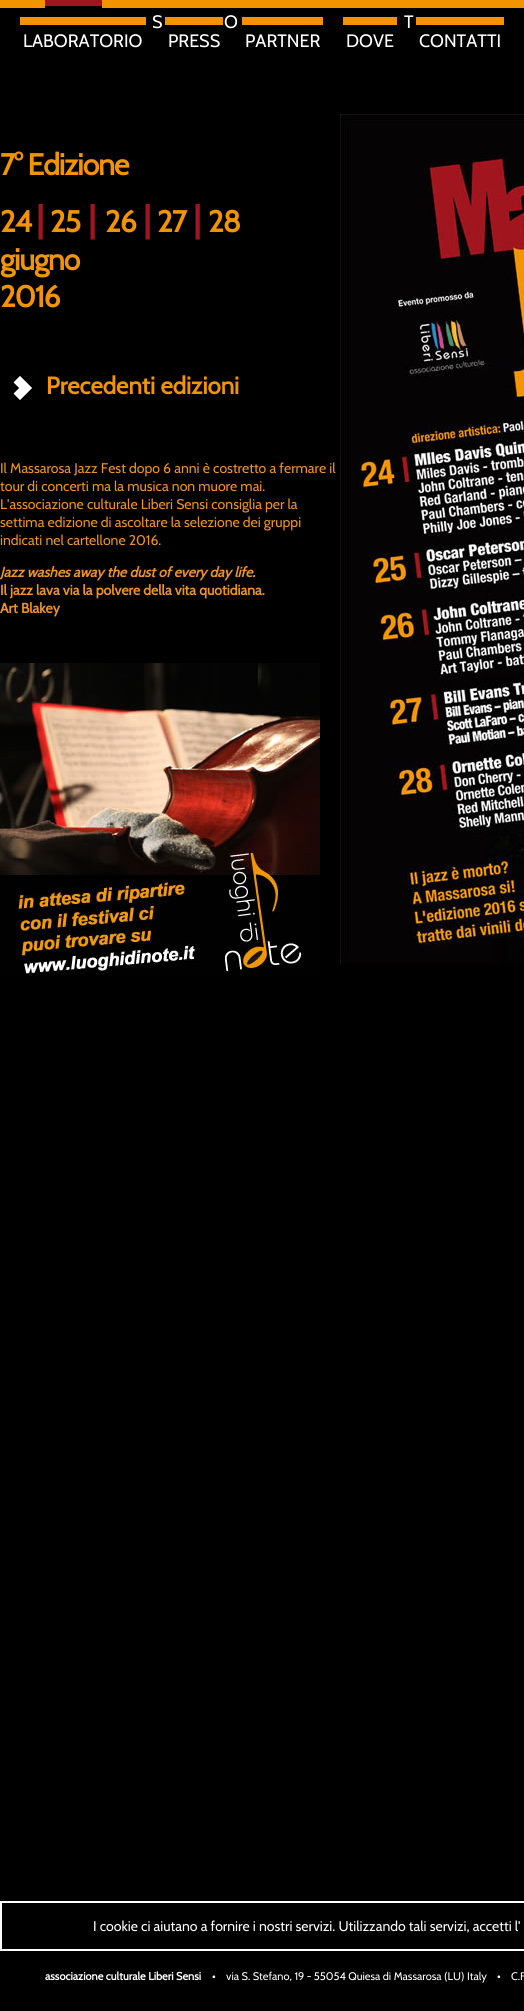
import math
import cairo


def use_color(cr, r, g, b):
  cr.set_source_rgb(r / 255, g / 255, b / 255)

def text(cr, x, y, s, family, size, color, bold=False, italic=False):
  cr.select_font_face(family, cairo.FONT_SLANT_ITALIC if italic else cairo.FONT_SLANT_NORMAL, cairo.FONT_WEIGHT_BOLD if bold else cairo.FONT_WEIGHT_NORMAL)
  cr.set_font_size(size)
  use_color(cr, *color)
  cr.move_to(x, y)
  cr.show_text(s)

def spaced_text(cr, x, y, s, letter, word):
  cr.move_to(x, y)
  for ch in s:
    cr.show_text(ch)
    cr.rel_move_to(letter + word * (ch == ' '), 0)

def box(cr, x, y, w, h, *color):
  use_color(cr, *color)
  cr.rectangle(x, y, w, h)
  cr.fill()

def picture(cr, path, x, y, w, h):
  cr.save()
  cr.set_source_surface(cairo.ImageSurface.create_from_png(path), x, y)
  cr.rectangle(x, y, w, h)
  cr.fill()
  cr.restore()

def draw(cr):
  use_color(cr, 0, 0, 0)
  cr.paint()
  box(cr, 0, 0, 524, 8, 242, 148, 0)
  box(cr, 45, 0, 57, 6, 161, 22, 30)
  box(cr, 45, 6, 57, 2, 0, 0, 0)
  box(cr, 20, 17, 126, 8, 242, 148, 0)
  box(cr, 165, 17, 58, 8, 242, 148, 0)
  box(cr, 242, 17, 81, 8, 242, 148, 0)
  box(cr, 343, 17, 54, 8, 242, 148, 0)
  box(cr, 416, 17, 88, 8, 242, 148, 0)
  picture(cr, "img_01.png", 13, 376, 19, 24)
  picture(cr, "img_02.png", 0, 663, 320, 312)
  picture(cr, "img_03.png", 340, 114, 184, 850)
  cr.rectangle(1, 1902, 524, 48)
  use_color(cr, 255, 255, 255)
  cr.stroke()
  text(cr, 152, 28, "S", "Cabin", 18, (255, 255, 255))
  text(cr, 224, 28, "O", "Cabin", 18, (255, 255, 255))
  text(cr, 404, 28, "T", "Cabin", 18, (255, 255, 255))
  text(cr, 23, 47, "LABORATORIO", "Cabin", 18, (255, 255, 255))
  text(cr, 168, 47, "PRESS", "Cabin", 18, (255, 255, 255))
  text(cr, 245, 47, "PARTNER", "Cabin", 18, (255, 255, 255))
  text(cr, 346, 47, "DOVE", "Cabin", 18, (255, 255, 255))
  text(cr, 419, 47, "CONTATTI", "Cabin", 18, (255, 255, 255))
  cr.select_font_face("Cabin", cairo.FONT_SLANT_NORMAL, cairo.FONT_WEIGHT_BOLD)
  cr.set_font_size(30)
  use_color(cr, 242, 148, 0)
  spaced_text(cr, 0, 175, "7° Edizione", -1, 0)
  spaced_text(cr, 0, 232, "24", -1, 0)
  text(cr, 36, 232, "|", "Cabin", 36, (161, 22, 30), bold=True)
  cr.set_font_size(30)
  use_color(cr, 242, 148, 0)
  spaced_text(cr, 50, 232, "25", -1, 0)
  text(cr, 88, 232, "|", "Cabin", 36, (161, 22, 30), bold=True)
  cr.set_font_size(30)
  use_color(cr, 242, 148, 0)
  spaced_text(cr, 105, 232, "26", -1, 0)
  text(cr, 143, 232, "|", "Cabin", 36, (161, 22, 30), bold=True)
  cr.set_font_size(30)
  use_color(cr, 242, 148, 0)
  spaced_text(cr, 157, 232, "27", -1, 0)
  cr.set_font_size(36)
  use_color(cr, 161, 22, 30)
  spaced_text(cr, 193, 232, "|", -1, 0)
  cr.set_font_size(30)
  use_color(cr, 242, 148, 0)
  spaced_text(cr, 208, 232, "28", -1, 0)
  spaced_text(cr, 0, 270, "giugno", -1, 0)
  spaced_text(cr, 0, 307, "2016", -1, 0)
  text(cr, 46, 394, "Precedenti edizioni", "Cabin", 24, (242, 148, 0), bold=True)
  text(cr, 0, 473, "Il Massarosa Jazz Fest dopo 6 anni è costretto a fermare il", "Cabin", 14, (240, 147, 37))
  text(cr, 0, 491, "tour di concerti ma la musica non muore mai.", "Cabin", 14, (240, 147, 37))
  text(cr, 0, 509, "L'associazione culturale Liberi Sensi consiglia per la", "Cabin", 14, (240, 147, 37))
  text(cr, 0, 527, "settima edizione di ascoltare la selezione dei gruppi", "Cabin", 14, (240, 147, 37))
  text(cr, 0, 545, "indicati nel cartellone 2016.", "Cabin", 14, (240, 147, 37))
  text(cr, 0, 577, "Jazz washes away the dust of every day life.", "Cabin", 14, (240, 147, 37), bold=True, italic=True)
  text(cr, 0, 595, "Il jazz lava via la polvere della vita quotidiana.", "Cabin", 14, (240, 147, 37), bold=True)
  text(cr, 0, 613, "Art Blakey", "Cabin", 14, (240, 147, 37), bold=True)
  text(cr, 93, 1931, "I cookie ci aiutano a fornire i nostri servizi. Utilizzando tali servizi, accetti l'", "Cabin", 14, (255, 255, 255))
  text(cr, 45, 1980, "associazione culturale Liberi Sensi", "Cabin", 11, (255, 255, 255), bold=True)
  text(cr, 212, 1980, "•", "Cabin", 11, (255, 255, 255), bold=True)
  text(cr, 226, 1980, "via S. Stefano, 19 - 55054 Quiesa di Massarosa (LU) Italy", "Cabin", 11, (255, 255, 255))
  text(cr, 497, 1980, "•", "Cabin", 11, (255, 255, 255), bold=True)
  text(cr, 511, 1980, "C.F", "Cabin", 11, (255, 255, 255))


surface = cairo.ImageSurface(cairo.FORMAT_RGB24, 524, 2011)
cr = cairo.Context(surface)
options = cairo.FontOptions()
options.set_hint_metrics(cairo.HINT_METRICS_OFF)
options.set_hint_style(cairo.HINT_STYLE_NONE)
cr.set_font_options(options)
cr.set_miter_limit(4)
draw(cr)
surface.write_to_png("out.png")
